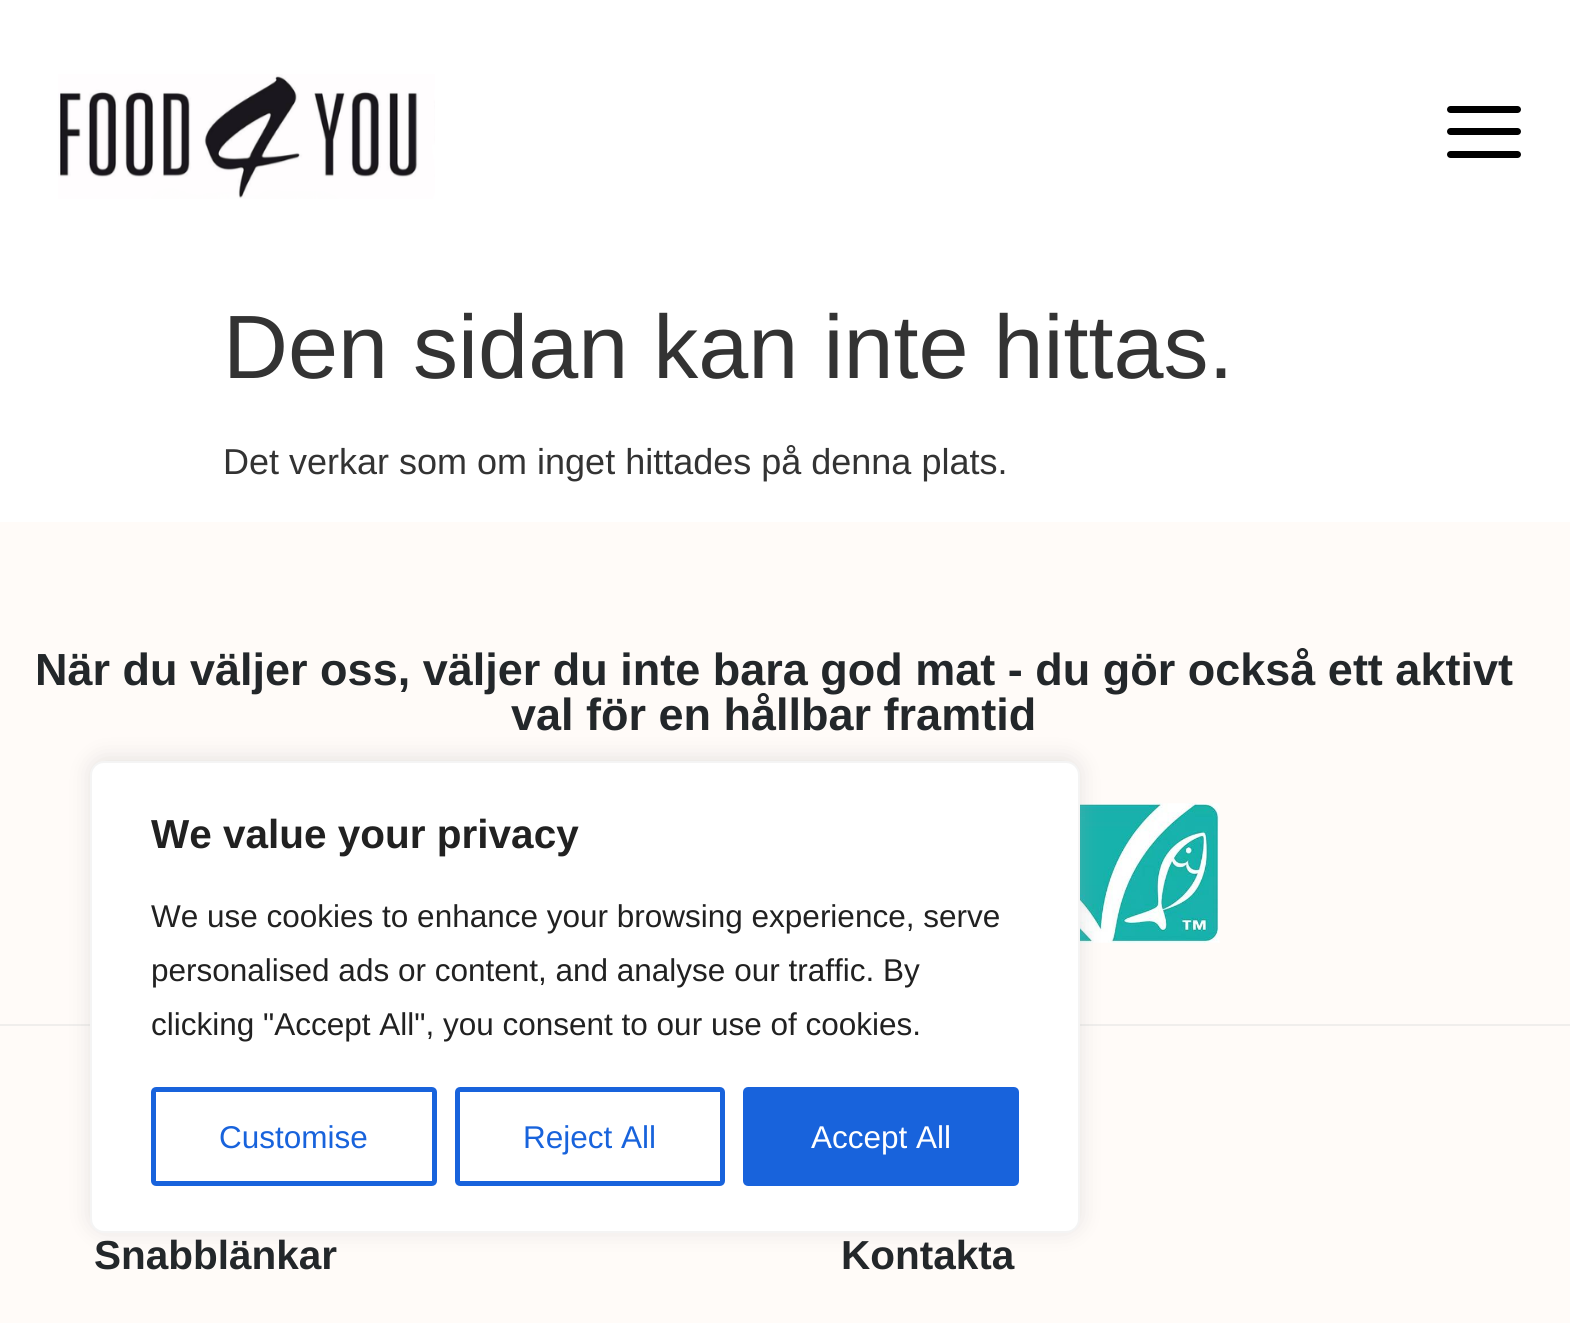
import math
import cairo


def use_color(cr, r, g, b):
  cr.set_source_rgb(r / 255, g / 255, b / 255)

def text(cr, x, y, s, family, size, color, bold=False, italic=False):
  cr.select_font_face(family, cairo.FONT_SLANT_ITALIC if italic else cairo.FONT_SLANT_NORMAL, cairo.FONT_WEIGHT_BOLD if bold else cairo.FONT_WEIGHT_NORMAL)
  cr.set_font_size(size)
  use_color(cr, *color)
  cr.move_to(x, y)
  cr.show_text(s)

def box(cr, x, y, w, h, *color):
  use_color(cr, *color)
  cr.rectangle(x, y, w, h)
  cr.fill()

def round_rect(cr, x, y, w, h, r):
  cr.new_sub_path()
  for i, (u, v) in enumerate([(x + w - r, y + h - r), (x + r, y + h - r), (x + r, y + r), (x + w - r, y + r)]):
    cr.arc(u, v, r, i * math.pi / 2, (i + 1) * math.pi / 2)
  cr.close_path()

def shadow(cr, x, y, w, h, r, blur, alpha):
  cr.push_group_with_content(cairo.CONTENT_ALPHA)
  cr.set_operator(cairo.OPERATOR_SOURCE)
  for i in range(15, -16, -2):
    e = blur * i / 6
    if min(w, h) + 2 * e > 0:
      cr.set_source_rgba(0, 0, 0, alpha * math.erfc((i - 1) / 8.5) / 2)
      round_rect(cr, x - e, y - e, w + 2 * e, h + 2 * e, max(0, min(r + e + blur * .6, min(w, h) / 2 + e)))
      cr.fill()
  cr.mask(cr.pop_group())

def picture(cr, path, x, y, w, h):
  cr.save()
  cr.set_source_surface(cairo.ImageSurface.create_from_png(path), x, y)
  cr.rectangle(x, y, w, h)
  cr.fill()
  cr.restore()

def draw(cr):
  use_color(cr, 255, 255, 255)
  cr.paint()
  picture(cr, "img_01.png", 58, 74, 377, 125)
  use_color(cr, 0, 0, 0)
  round_rect(cr, 1447, 128, 74, 7, 3.5)
  cr.fill()
  round_rect(cr, 1447, 106, 74, 7, 3.5)
  cr.fill()
  round_rect(cr, 1447, 151, 74, 7, 3.5)
  cr.fill()
  box(cr, 0, 522, 1570, 502, 255, 251, 248)
  box(cr, 0, 1024, 1570, 2, 240, 238, 236)
  picture(cr, "img_02.png", 1080, 803, 140, 140)
  box(cr, 0, 1026, 1570, 297, 255, 251, 248)
  use_color(cr, 172, 171, 171)
  shadow(cr, 90, 758, 990, 473, 14, 11, 0.3)
  use_color(cr, 255, 255, 255)
  round_rect(cr, 91, 762, 988, 470, 13)
  cr.fill_preserve()
  use_color(cr, 244, 244, 244)
  cr.stroke()
  round_rect(cr, 153.5, 1089.5, 281, 94, 2.5)
  use_color(cr, 24, 99, 220)
  cr.set_line_width(5)
  cr.stroke()
  round_rect(cr, 457.5, 1089.5, 265, 94, 2.5)
  cr.stroke()
  round_rect(cr, 745.5, 1089.5, 271, 94, 2.5)
  cr.fill_preserve()
  cr.stroke()
  text(cr, 223, 378, "Den sidan kan inte hittas.", "Liberation Sans", 90, (51, 51, 51))
  text(cr, 223, 474, "Det verkar som om inget hittades på denna plats.", "Liberation Sans", 36, (51, 51, 51))
  text(cr, 35, 685, "När du väljer oss, väljer du inte bara god mat - du gör också ett aktivt", "Liberation Sans", 45, (35, 39, 42), bold=True)
  text(cr, 511, 730, "val för en hållbar framtid", "Liberation Sans", 45, (35, 39, 42), bold=True)
  text(cr, 94, 1269, "Snabblänkar", "Liberation Sans", 40.5, (35, 39, 42), bold=True)
  text(cr, 841, 1269, "Kontakta", "Liberation Sans", 40.5, (35, 39, 42), bold=True)
  text(cr, 151, 848, "We value your privacy", "Liberation Sans", 40.5, (33, 33, 33), bold=True)
  text(cr, 151, 927, "We use cookies to enhance your browsing experience, serve", "Liberation Sans", 31.5, (33, 33, 33))
  text(cr, 151, 981, "personalised ads or content, and analyse our traffic. By", "Liberation Sans", 31.5, (33, 33, 33))
  text(cr, 151, 1035, "clicking \"Accept All\", you consent to our use of cookies.", "Liberation Sans", 31.5, (33, 33, 33))
  text(cr, 219, 1148, "Customise", "Liberation Sans", 31.5, (24, 99, 220))
  text(cr, 523, 1148, "Reject All", "Liberation Sans", 31.5, (24, 99, 220))
  text(cr, 811, 1148, "Accept All", "Liberation Sans", 31.5, (255, 255, 255))


surface = cairo.ImageSurface(cairo.FORMAT_RGB24, 1570, 1323)
cr = cairo.Context(surface)
options = cairo.FontOptions()
options.set_hint_metrics(cairo.HINT_METRICS_OFF)
options.set_hint_style(cairo.HINT_STYLE_NONE)
cr.set_font_options(options)
cr.set_miter_limit(4)
draw(cr)
surface.write_to_png("out.png")
